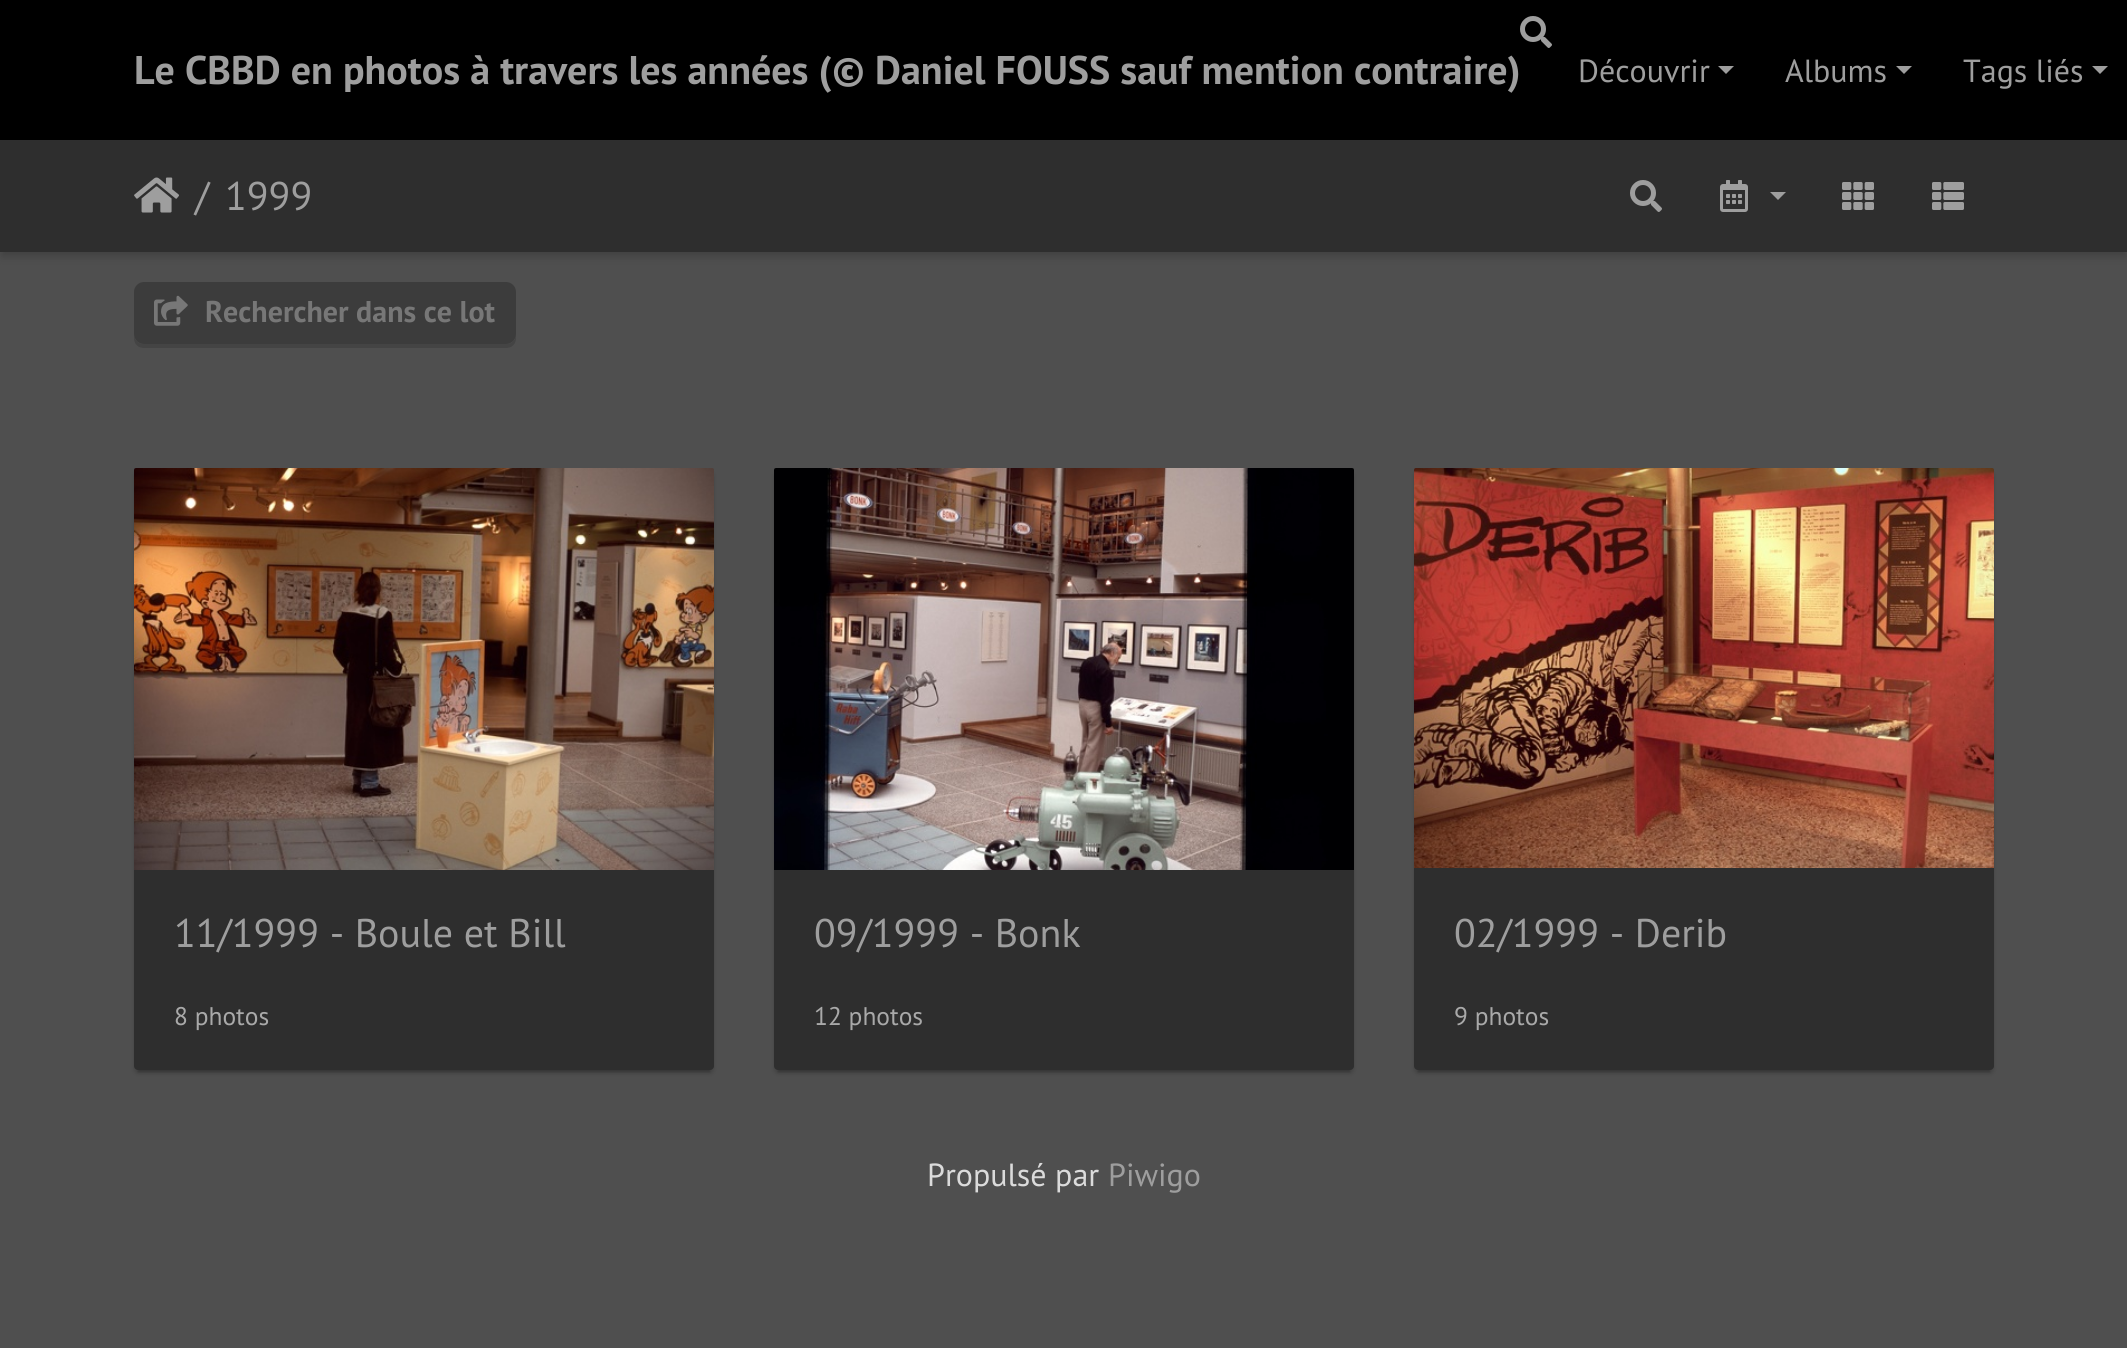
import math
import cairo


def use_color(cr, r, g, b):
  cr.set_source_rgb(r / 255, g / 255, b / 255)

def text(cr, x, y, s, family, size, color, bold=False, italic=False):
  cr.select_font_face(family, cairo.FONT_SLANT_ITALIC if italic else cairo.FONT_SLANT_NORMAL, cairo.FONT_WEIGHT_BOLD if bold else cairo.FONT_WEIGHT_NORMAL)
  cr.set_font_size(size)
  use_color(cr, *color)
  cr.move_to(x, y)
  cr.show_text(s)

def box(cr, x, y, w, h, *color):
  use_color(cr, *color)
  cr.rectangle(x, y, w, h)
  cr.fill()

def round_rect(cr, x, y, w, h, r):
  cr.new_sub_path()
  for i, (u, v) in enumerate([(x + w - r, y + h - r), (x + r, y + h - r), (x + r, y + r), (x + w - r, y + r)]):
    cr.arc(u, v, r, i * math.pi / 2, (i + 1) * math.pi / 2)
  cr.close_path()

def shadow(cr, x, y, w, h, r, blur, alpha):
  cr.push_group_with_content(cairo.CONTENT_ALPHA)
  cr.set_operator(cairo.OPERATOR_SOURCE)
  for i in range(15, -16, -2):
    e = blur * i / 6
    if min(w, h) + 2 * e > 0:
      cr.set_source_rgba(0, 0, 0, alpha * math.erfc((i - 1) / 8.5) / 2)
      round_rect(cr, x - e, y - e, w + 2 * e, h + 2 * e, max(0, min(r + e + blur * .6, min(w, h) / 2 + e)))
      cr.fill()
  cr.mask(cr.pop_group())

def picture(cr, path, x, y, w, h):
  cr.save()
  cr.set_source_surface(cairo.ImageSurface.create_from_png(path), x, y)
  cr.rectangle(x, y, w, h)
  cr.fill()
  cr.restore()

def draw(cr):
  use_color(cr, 79, 79, 79)
  cr.paint()
  use_color(cr, 0, 0, 0)
  shadow(cr, 2, 148, 2124, 108, 0, 5, 0.2)
  box(cr, 0, 0, 2127, 140, 0, 0, 0)
  picture(cr, "img_01.png", 1520, 16, 32, 32)
  use_color(cr, 158, 158, 158)
  cr.new_path()
  cr.move_to(1718, 66)
  cr.line_to(1734, 66)
  cr.line_to(1726, 74)
  cr.close_path()
  cr.fill()
  cr.new_path()
  cr.move_to(1896, 66)
  cr.line_to(1912, 66)
  cr.line_to(1904, 74)
  cr.close_path()
  cr.fill()
  cr.new_path()
  cr.move_to(2092, 66)
  cr.line_to(2108, 66)
  cr.line_to(2100, 74)
  cr.close_path()
  cr.fill()
  box(cr, 0, 140, 2127, 112, 46, 46, 46)
  picture(cr, "img_02.png", 134, 177, 45, 36)
  picture(cr, "img_03.png", 1630, 180, 32, 32)
  picture(cr, "img_04.png", 1720, 180, 28, 32)
  use_color(cr, 158, 158, 158)
  cr.new_path()
  cr.move_to(1770, 192)
  cr.line_to(1786, 192)
  cr.line_to(1778, 200)
  cr.close_path()
  cr.fill()
  picture(cr, "img_05.png", 1842, 182, 32, 28)
  picture(cr, "img_06.png", 1932, 182, 32, 28)
  use_color(cr, 68, 68, 68)
  cr.new_path()
  cr.move_to(134, 334)
  cr.line_to(134, 338)
  cr.curve_to(134, 344, 138, 348, 144, 348)
  cr.line_to(506, 348)
  cr.curve_to(512, 348, 516, 344, 516, 338)
  cr.line_to(516, 334)
  cr.curve_to(516, 340, 512, 344, 506, 344)
  cr.line_to(144, 344)
  cr.curve_to(138, 344, 134, 340, 134, 334)
  cr.close_path()
  cr.fill()
  use_color(cr, 60, 60, 60)
  round_rect(cr, 134, 282, 382, 62, 10)
  cr.fill()
  picture(cr, "img_07.png", 154, 295, 34, 31)
  use_color(cr, 0, 0, 0)
  shadow(cr, 138, 478, 572, 594, 0, 1, 0.2)
  shadow(cr, 134, 472, 580, 602, 4, 2, 0.14)
  use_color(cr, 46, 46, 46)
  round_rect(cr, 134, 468, 580, 602, 4)
  cr.fill()
  picture(cr, "img_08.png", 134, 468, 580, 402)
  use_color(cr, 0, 0, 0)
  shadow(cr, 778, 478, 572, 594, 0, 1, 0.2)
  shadow(cr, 774, 472, 580, 602, 4, 2, 0.14)
  use_color(cr, 46, 46, 46)
  round_rect(cr, 774, 468, 580, 602, 4)
  cr.fill()
  picture(cr, "img_09.png", 774, 468, 580, 402)
  use_color(cr, 0, 0, 0)
  shadow(cr, 1418, 478, 572, 594, 0, 1, 0.2)
  shadow(cr, 1414, 472, 580, 602, 4, 2, 0.14)
  use_color(cr, 46, 46, 46)
  round_rect(cr, 1414, 468, 580, 602, 4)
  cr.fill()
  picture(cr, "img_10.png", 1414, 468, 580, 400)
  text(cr, 134, 84, "Le CBBD en photos à travers les années (© Daniel FOUSS sauf mention contraire)", "PT Sans", 40, (158, 158, 158), bold=True)
  text(cr, 1578, 82, "Découvrir", "PT Sans", 32, (158, 158, 158))
  text(cr, 1785, 82, "Albums", "PT Sans", 32, (158, 158, 158))
  text(cr, 1963, 82, "Tags liés", "PT Sans", 32, (158, 158, 158))
  text(cr, 195, 210, "/", "PT Sans", 40, (158, 158, 158))
  text(cr, 225, 210, "1999", "PT Sans", 40, (158, 158, 158))
  text(cr, 205, 322, "Rechercher dans ce lot", "PT Sans", 30, (119, 119, 119), bold=True)
  text(cr, 174, 947, "11/1999 - Boule et Bill", "PT Sans", 40, (158, 158, 158))
  text(cr, 174, 1025, "8 photos", "PT Sans", 25.5, (169, 169, 169))
  text(cr, 814, 947, "09/1999 - Bonk", "PT Sans", 40, (158, 158, 158))
  text(cr, 814, 1025, "12 photos", "PT Sans", 25.5, (169, 169, 169))
  text(cr, 1454, 947, "02/1999 - Derib", "PT Sans", 40, (158, 158, 158))
  text(cr, 1454, 1025, "9 photos", "PT Sans", 25.5, (169, 169, 169))
  text(cr, 927, 1186, "Propulsé par", "PT Sans", 32, (219, 219, 219))
  text(cr, 1108, 1186, "Piwigo", "PT Sans", 32, (158, 158, 158))


surface = cairo.ImageSurface(cairo.FORMAT_RGB24, 2127, 1348)
cr = cairo.Context(surface)
options = cairo.FontOptions()
options.set_hint_metrics(cairo.HINT_METRICS_OFF)
options.set_hint_style(cairo.HINT_STYLE_NONE)
cr.set_font_options(options)
cr.set_miter_limit(4)
draw(cr)
surface.write_to_png("out.png")
